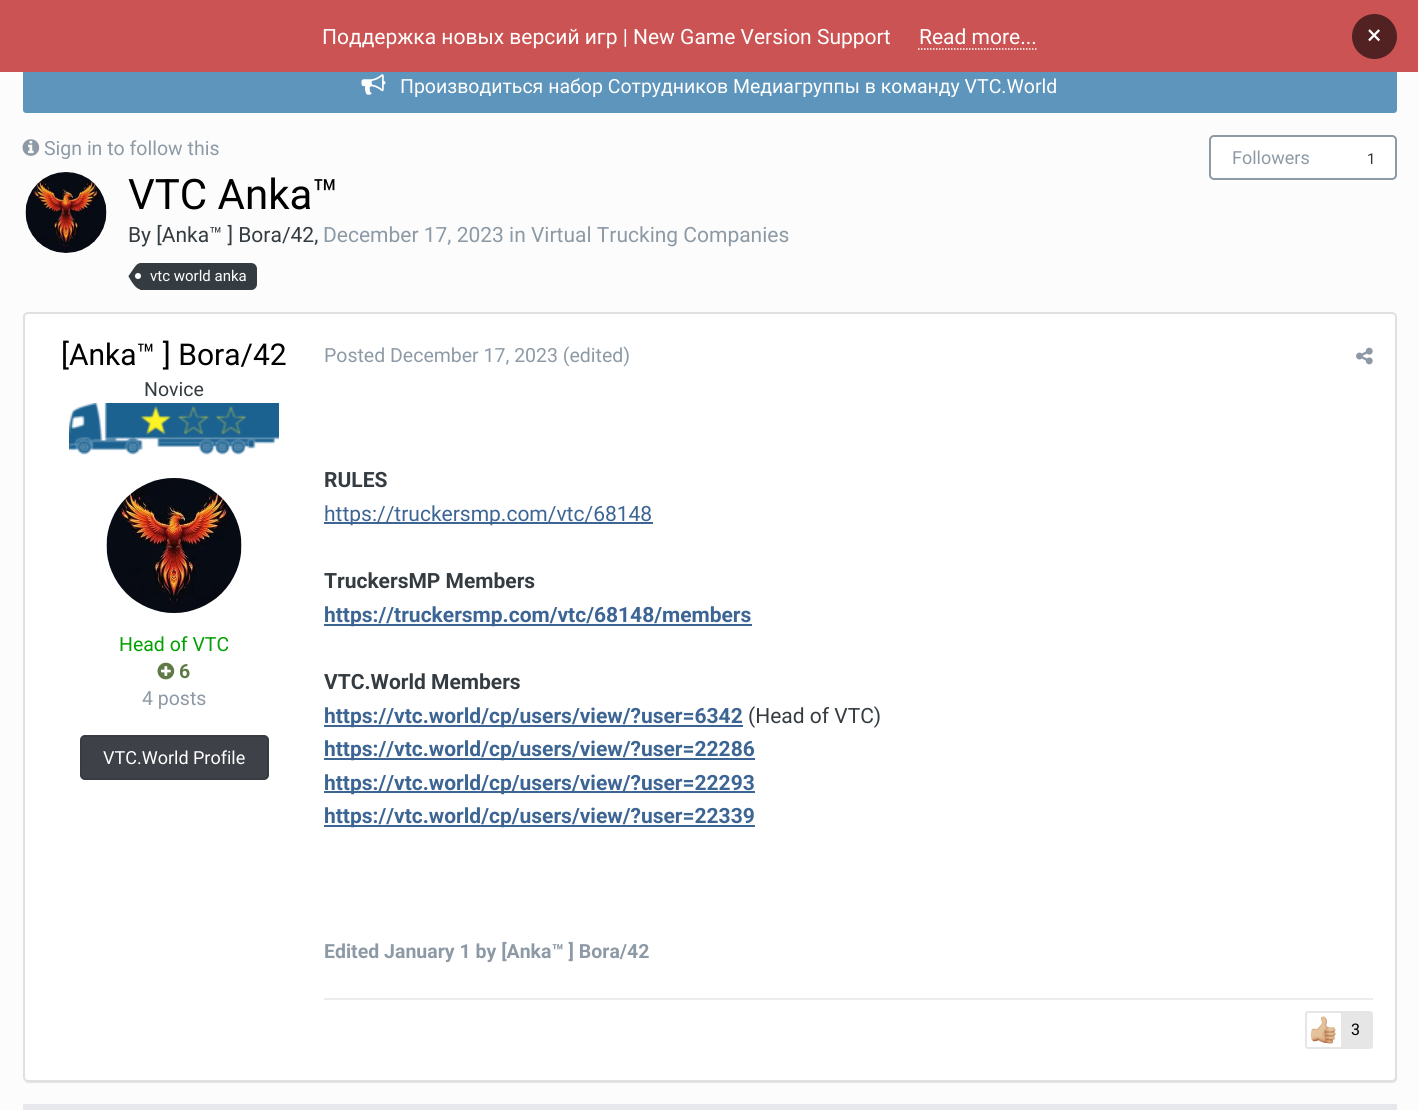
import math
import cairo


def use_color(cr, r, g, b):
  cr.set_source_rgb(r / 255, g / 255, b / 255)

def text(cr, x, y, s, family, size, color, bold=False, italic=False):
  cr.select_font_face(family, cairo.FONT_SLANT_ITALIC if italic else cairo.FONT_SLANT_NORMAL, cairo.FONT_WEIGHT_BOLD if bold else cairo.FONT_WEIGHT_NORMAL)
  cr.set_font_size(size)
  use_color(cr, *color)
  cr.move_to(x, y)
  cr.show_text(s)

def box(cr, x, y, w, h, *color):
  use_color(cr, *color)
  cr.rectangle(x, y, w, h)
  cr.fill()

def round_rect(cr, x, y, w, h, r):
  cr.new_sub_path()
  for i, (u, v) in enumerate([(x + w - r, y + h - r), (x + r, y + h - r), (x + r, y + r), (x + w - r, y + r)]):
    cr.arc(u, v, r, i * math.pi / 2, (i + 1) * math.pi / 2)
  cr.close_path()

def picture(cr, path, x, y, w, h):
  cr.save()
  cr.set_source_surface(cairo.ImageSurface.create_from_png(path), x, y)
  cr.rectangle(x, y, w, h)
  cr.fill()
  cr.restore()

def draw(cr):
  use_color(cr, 252, 252, 252)
  cr.paint()
  use_color(cr, 94, 149, 188)
  round_rect(cr, 23, 59, 1374, 54, 3)
  cr.fill()
  box(cr, 0, 0, 1418, 72, 204, 83, 83)
  cr.new_path()
  cr.move_to(918, 49)
  cr.line_to(1036.5, 49)
  use_color(cr, 255, 255, 255)
  cr.set_line_width(1.5)
  cr.set_dash([1.5, 1.5])
  cr.stroke()
  use_color(cr, 82, 33, 33)
  cr.arc(1374.5, 36.5, 22.5, 0, 2 * math.pi)
  cr.fill()
  picture(cr, "img_01.png", 361, 74, 25, 21)
  picture(cr, "img_02.png", 22, 139, 18, 17)
  use_color(cr, 255, 255, 255)
  round_rect(cr, 1210, 136, 186, 43, 4)
  cr.fill_preserve()
  use_color(cr, 141, 154, 166)
  cr.set_line_width(2)
  cr.set_dash([])
  cr.stroke()
  use_color(cr, 255, 255, 255)
  cr.arc(66.5, 213.5, 40.5, 0, 2 * math.pi)
  cr.fill()
  picture(cr, "img_03.png", 25, 172, 82, 81)
  use_color(cr, 53, 60, 65)
  cr.new_path()
  cr.move_to(140, 263)
  cr.line_to(251, 263)
  cr.curve_to(254.5, 263, 257, 265.5, 257, 269)
  cr.line_to(257, 284)
  cr.curve_to(257, 287.5, 254.5, 290, 251, 290)
  cr.line_to(140, 290)
  cr.close_path()
  cr.fill()
  cr.new_path()
  cr.move_to(141, 289.5)
  cr.curve_to(135.5, 289.5, 131, 280.5, 128.5, 276.5)
  cr.line_to(128.5, 276)
  cr.line_to(141, 276)
  cr.line_to(140.5, 276.5)
  cr.line_to(141, 276.5)
  cr.close_path()
  cr.move_to(133, 269.5)
  cr.curve_to(135, 266.5, 137, 263, 141, 263)
  cr.line_to(141, 276)
  cr.line_to(140.5, 275.5)
  cr.line_to(141, 276)
  cr.line_to(128.5, 276)
  cr.close_path()
  cr.fill()
  use_color(cr, 255, 255, 255)
  cr.arc(138, 276, 3, 0, 2 * math.pi)
  cr.fill()
  use_color(cr, 227, 227, 227)
  cr.new_path()
  cr.move_to(23, 1079)
  cr.curve_to(24, 1081, 26, 1083, 28, 1083)
  cr.line_to(1392, 1083)
  cr.curve_to(1395, 1083, 1397, 1081, 1397, 1078)
  cr.line_to(1397, 319)
  cr.line_to(1396, 317)
  cr.line_to(1396, 1077)
  cr.curve_to(1396, 1079, 1394, 1082, 1392, 1082)
  cr.line_to(27, 1082)
  cr.curve_to(25, 1082, 24, 1081, 23, 1079)
  cr.close_path()
  cr.fill()
  use_color(cr, 255, 255, 255)
  round_rect(cr, 24, 313, 1372, 768, 4)
  cr.fill_preserve()
  use_color(cr, 224, 224, 224)
  cr.stroke()
  picture(cr, "img_04.png", 69, 403, 210, 52)
  picture(cr, "img_05.png", 106, 478, 136, 135)
  picture(cr, "img_06.png", 157, 662, 18, 18)
  use_color(cr, 62, 65, 72)
  round_rect(cr, 80, 735, 189, 45, 5)
  cr.fill()
  round_rect(cr, 81, 736, 187, 43, 4)
  cr.set_source_rgba(0, 0, 0, 0.1)
  cr.stroke()
  picture(cr, "img_07.png", 1356, 347, 17, 18)
  box(cr, 324, 522, 329, 2, 61, 101, 148)
  box(cr, 324, 624, 428, 2, 61, 101, 148)
  box(cr, 324, 725, 419, 2, 61, 101, 148)
  box(cr, 324, 758, 431, 2, 61, 101, 148)
  box(cr, 324, 791, 431, 2, 61, 101, 148)
  box(cr, 324, 825, 431, 2, 61, 101, 148)
  box(cr, 324, 998, 1049, 2, 236, 236, 236)
  round_rect(cr, 1306, 1012, 66, 36, 2)
  use_color(cr, 230, 230, 230)
  cr.stroke()
  picture(cr, "img_08.png", 1310, 1016, 26, 28)
  cr.set_source_rgba(0, 0, 0, 0.1)
  cr.rectangle(1341, 1013, 30, 34)
  cr.fill()
  box(cr, 23, 1104, 1374, 6, 230, 232, 235)
  text(cr, 322, 44, "Поддержка новых версий игр | New Game Version Support", "Roboto", 21, (255, 255, 255))
  text(cr, 919, 44, "Read more...", "Roboto", 21, (255, 255, 255))
  text(cr, 1367, 44, "×", "Roboto", 27, (255, 255, 255))
  text(cr, 400, 93, "Производиться набор Сотрудников Медиагруппы в команду VTC.World", "Roboto", 19.5, (255, 255, 255))
  text(cr, 44, 155, "Sign in to follow this", "Roboto", 19.5, (141, 154, 166))
  text(cr, 1232, 164, "Followers", "Roboto", 18, (141, 154, 166))
  text(cr, 1367, 164, "1", "Roboto", 15, (51, 51, 51))
  text(cr, 128, 209, "VTC Anka™", "Roboto", 42, (0, 0, 0))
  text(cr, 128, 242, "By [Anka™ ] Bora/42,", "Roboto", 21, (53, 60, 65))
  text(cr, 323, 242, "December 17, 2023 in Virtual Trucking Companies", "Roboto", 21, (141, 154, 166))
  text(cr, 150, 281, "vtc world anka", "Roboto", 15, (255, 255, 255))
  text(cr, 61, 365, "[Anka™ ] Bora/42", "Roboto", 30, (0, 0, 0))
  text(cr, 144, 396, "Novice", "Roboto", 19.5, (53, 60, 65))
  text(cr, 119, 651, "Head of VTС", "Roboto", 19.5, (0, 161, 0))
  text(cr, 179, 678, "6", "Roboto", 19.5, (95, 122, 71), bold=True)
  text(cr, 142, 705, "4 posts", "Roboto", 19.5, (141, 154, 166))
  text(cr, 103, 764, "VTC.World Profile", "Roboto", 18, (255, 255, 255))
  text(cr, 324, 362, "Posted December 17, 2023 (edited)", "Roboto", 19.5, (141, 154, 166))
  text(cr, 324, 487, "RULES", "Roboto", 21, (53, 60, 65), bold=True)
  text(cr, 324, 521, "https://truckersmp.com/vtc/68148", "Roboto", 21, (61, 101, 148))
  text(cr, 324, 588, "TruckersMP Members", "Roboto", 21, (53, 60, 65), bold=True)
  text(cr, 324, 622, "https://truckersmp.com/vtc/68148/members", "Roboto", 21, (61, 101, 148), bold=True)
  text(cr, 324, 689, "VTC.World Members", "Roboto", 21, (53, 60, 65), bold=True)
  text(cr, 324, 723, "https://vtc.world/cp/users/view/?user=6342", "Roboto", 21, (61, 101, 148), bold=True)
  text(cr, 748, 723, "(Head of VTC)", "Roboto", 21, (53, 60, 65))
  text(cr, 324, 756, "https://vtc.world/cp/users/view/?user=22286", "Roboto", 21, (61, 101, 148), bold=True)
  text(cr, 324, 790, "https://vtc.world/cp/users/view/?user=22293", "Roboto", 21, (61, 101, 148), bold=True)
  text(cr, 324, 823, "https://vtc.world/cp/users/view/?user=22339", "Roboto", 21, (61, 101, 148), bold=True)
  text(cr, 324, 958, "Edited January 1 by [Anka™ ] Bora/42", "Roboto", 19.5, (141, 154, 166), bold=True)
  text(cr, 1351, 1035, "3", "Roboto", 16, (0, 0, 0))


surface = cairo.ImageSurface(cairo.FORMAT_RGB24, 1418, 1110)
cr = cairo.Context(surface)
options = cairo.FontOptions()
options.set_hint_metrics(cairo.HINT_METRICS_OFF)
options.set_hint_style(cairo.HINT_STYLE_NONE)
cr.set_font_options(options)
cr.set_miter_limit(4)
draw(cr)
surface.write_to_png("out.png")
